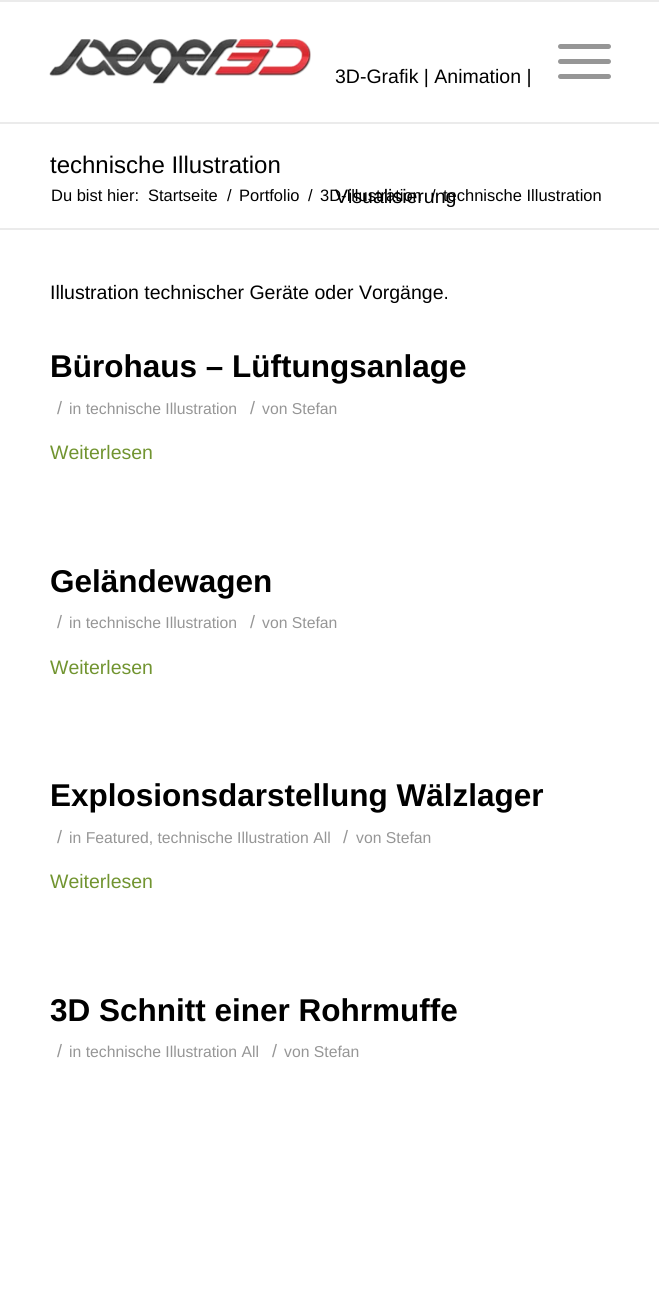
import math
import cairo


def use_color(cr, r, g, b):
  cr.set_source_rgb(r / 255, g / 255, b / 255)

def text(cr, x, y, s, family, size, color, bold=False, italic=False):
  cr.select_font_face(family, cairo.FONT_SLANT_ITALIC if italic else cairo.FONT_SLANT_NORMAL, cairo.FONT_WEIGHT_BOLD if bold else cairo.FONT_WEIGHT_NORMAL)
  cr.set_font_size(size)
  use_color(cr, *color)
  cr.move_to(x, y)
  cr.show_text(s)

def box(cr, x, y, w, h, *color):
  use_color(cr, *color)
  cr.rectangle(x, y, w, h)
  cr.fill()

def round_rect(cr, x, y, w, h, r):
  cr.new_sub_path()
  for i, (u, v) in enumerate([(x + w - r, y + h - r), (x + r, y + h - r), (x + r, y + r), (x + w - r, y + r)]):
    cr.arc(u, v, r, i * math.pi / 2, (i + 1) * math.pi / 2)
  cr.close_path()

def picture(cr, path, x, y, w, h):
  cr.save()
  cr.set_source_surface(cairo.ImageSurface.create_from_png(path), x, y)
  cr.rectangle(x, y, w, h)
  cr.fill()
  cr.restore()

def draw(cr):
  use_color(cr, 255, 255, 255)
  cr.paint()
  box(cr, 0, 0, 659, 2, 235, 235, 235)
  box(cr, 0, 122, 659, 2, 235, 235, 235)
  picture(cr, "img_01.png", 49, 39, 262, 45)
  use_color(cr, 150, 150, 150)
  round_rect(cr, 558, 59, 53, 5, 2.5)
  cr.fill()
  round_rect(cr, 558, 44, 53, 5, 2.5)
  cr.fill()
  round_rect(cr, 558, 74, 53, 5, 2.5)
  cr.fill()
  box(cr, 0, 228, 659, 2, 235, 235, 235)
  text(cr, 335, 83, "3D-Grafik | Animation |", "Liberation Sans", 19.5, (0, 0, 0))
  text(cr, 50, 173, "technische Illustration", "Liberation Sans", 24, (0, 0, 0))
  text(cr, 51, 201, "Du bist hier:", "Liberation Sans", 16.5, (0, 0, 0))
  text(cr, 148, 201, "Startseite", "Liberation Sans", 16.5, (0, 0, 0))
  text(cr, 227, 201, "/", "Liberation Sans", 16.5, (0, 0, 0))
  text(cr, 239, 201, "Portfolio", "Liberation Sans", 16.5, (0, 0, 0))
  text(cr, 308, 201, "/", "Liberation Sans", 16.5, (0, 0, 0))
  text(cr, 320, 201, "3D-Illustration", "Liberation Sans", 16.5, (0, 0, 0))
  text(cr, 431, 201, "/", "Liberation Sans", 16.5, (0, 0, 0))
  text(cr, 443, 201, "technische Illustration", "Liberation Sans", 16.5, (0, 0, 0))
  text(cr, 335, 203, "Visualisierung", "Liberation Sans", 19.5, (0, 0, 0))
  text(cr, 50, 299, "Illustration technischer Geräte oder Vorgänge.", "Liberation Sans", 19.5, (0, 0, 0))
  text(cr, 50, 377, "Bürohaus – Lüftungsanlage", "Liberation Sans", 31.5, (0, 0, 0), bold=True)
  text(cr, 57, 414, "/", "Liberation Sans", 18, (150, 150, 150))
  text(cr, 69, 414, "in technische Illustration", "Liberation Sans", 15.75, (150, 150, 150))
  text(cr, 250, 414, "/", "Liberation Sans", 18, (150, 150, 150))
  text(cr, 262, 414, "von Stefan", "Liberation Sans", 15.75, (150, 150, 150))
  text(cr, 50, 459, "Weiterlesen", "Liberation Sans", 19.5, (113, 148, 48))
  text(cr, 50, 592, "Geländewagen", "Liberation Sans", 31.5, (0, 0, 0), bold=True)
  text(cr, 57, 628, "/", "Liberation Sans", 18, (150, 150, 150))
  text(cr, 69, 628, "in technische Illustration", "Liberation Sans", 15.75, (150, 150, 150))
  text(cr, 250, 628, "/", "Liberation Sans", 18, (150, 150, 150))
  text(cr, 262, 628, "von Stefan", "Liberation Sans", 15.75, (150, 150, 150))
  text(cr, 50, 674, "Weiterlesen", "Liberation Sans", 19.5, (113, 148, 48))
  text(cr, 50, 806, "Explosionsdarstellung Wälzlager", "Liberation Sans", 31.5, (0, 0, 0), bold=True)
  text(cr, 57, 843, "/", "Liberation Sans", 18, (150, 150, 150))
  text(cr, 69, 843, "in Featured, technische Illustration All", "Liberation Sans", 15.75, (150, 150, 150))
  text(cr, 343, 843, "/", "Liberation Sans", 18, (150, 150, 150))
  text(cr, 356, 843, "von Stefan", "Liberation Sans", 15.75, (150, 150, 150))
  text(cr, 50, 888, "Weiterlesen", "Liberation Sans", 19.5, (113, 148, 48))
  text(cr, 50, 1021, "3D Schnitt einer Rohrmuffe", "Liberation Sans", 31.5, (0, 0, 0), bold=True)
  text(cr, 57, 1057, "/", "Liberation Sans", 18, (150, 150, 150))
  text(cr, 69, 1057, "in technische Illustration All", "Liberation Sans", 15.75, (150, 150, 150))
  text(cr, 272, 1057, "/", "Liberation Sans", 18, (150, 150, 150))
  text(cr, 284, 1057, "von Stefan", "Liberation Sans", 15.75, (150, 150, 150))


surface = cairo.ImageSurface(cairo.FORMAT_RGB24, 659, 1289)
cr = cairo.Context(surface)
options = cairo.FontOptions()
options.set_hint_metrics(cairo.HINT_METRICS_OFF)
options.set_hint_style(cairo.HINT_STYLE_NONE)
cr.set_font_options(options)
cr.set_miter_limit(4)
draw(cr)
surface.write_to_png("out.png")
